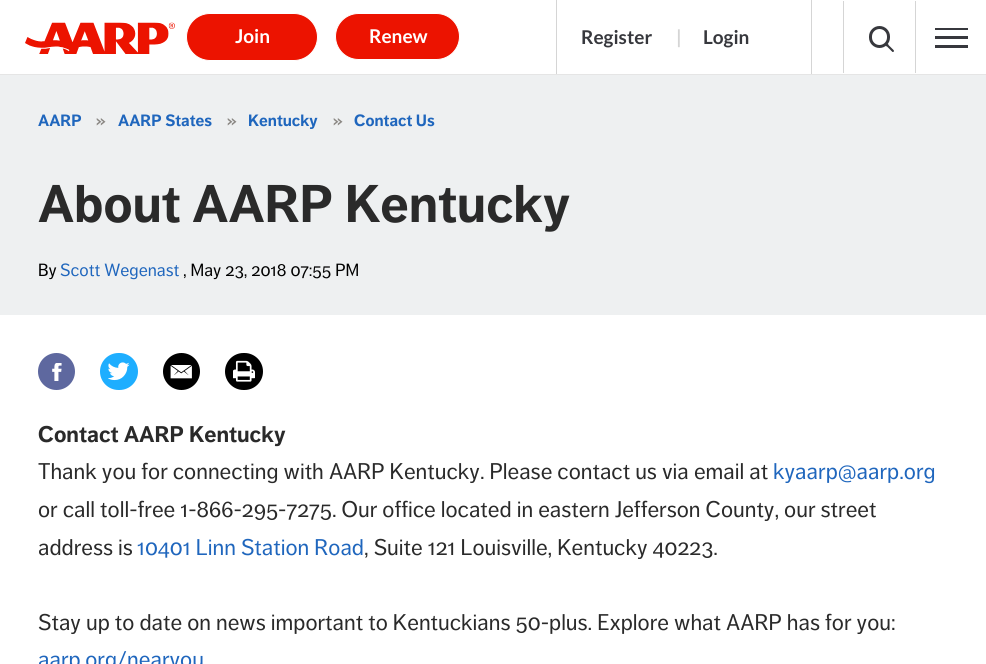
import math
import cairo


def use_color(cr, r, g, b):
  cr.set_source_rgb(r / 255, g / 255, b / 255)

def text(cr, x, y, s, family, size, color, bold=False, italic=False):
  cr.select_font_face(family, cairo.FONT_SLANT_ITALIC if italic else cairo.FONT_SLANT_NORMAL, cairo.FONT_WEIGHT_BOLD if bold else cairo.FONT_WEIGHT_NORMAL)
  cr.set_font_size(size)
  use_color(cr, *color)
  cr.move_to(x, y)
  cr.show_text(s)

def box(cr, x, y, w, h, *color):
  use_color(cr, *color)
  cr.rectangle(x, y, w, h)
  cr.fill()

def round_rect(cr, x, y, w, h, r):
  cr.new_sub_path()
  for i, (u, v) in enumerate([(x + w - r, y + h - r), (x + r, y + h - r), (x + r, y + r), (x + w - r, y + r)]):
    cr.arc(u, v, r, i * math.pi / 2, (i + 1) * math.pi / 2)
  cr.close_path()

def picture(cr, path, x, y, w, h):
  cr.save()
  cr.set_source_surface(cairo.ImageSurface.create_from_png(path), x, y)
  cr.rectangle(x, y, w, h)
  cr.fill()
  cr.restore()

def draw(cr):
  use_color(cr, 255, 255, 255)
  cr.paint()
  box(cr, 0, 74, 986, 1, 229, 229, 229)
  picture(cr, "img_01.png", 25, 22, 150, 32)
  use_color(cr, 236, 19, 0)
  round_rect(cr, 186.5, 13.5, 131, 47, 23.5)
  cr.fill_preserve()
  use_color(cr, 255, 255, 255)
  cr.set_line_width(1)
  cr.stroke()
  use_color(cr, 236, 19, 0)
  round_rect(cr, 335.5, 13.5, 124, 46, 23)
  cr.fill_preserve()
  use_color(cr, 255, 255, 255)
  cr.stroke()
  box(cr, 556, 0, 1, 74, 213, 213, 213)
  box(cr, 811, 0, 1, 74, 213, 213, 213)
  box(cr, 915, 1, 1, 72, 213, 213, 213)
  box(cr, 843, 1, 1, 72, 213, 213, 213)
  round_rect(cr, 870.5, 27.5, 18, 19, 9)
  use_color(cr, 55, 56, 61)
  cr.set_line_width(3)
  cr.stroke()
  cr.new_path()
  cr.move_to(886.5, 43)
  cr.line_to(894, 50.5)
  cr.line_to(892.5, 52)
  cr.line_to(885, 44.5)
  cr.close_path()
  cr.fill()
  cr.new_path()
  cr.move_to(892.5, 49.5)
  cr.line_to(894, 51.5)
  cr.line_to(893, 52)
  cr.line_to(891.5, 50.5)
  cr.close_path()
  cr.move_to(886.5, 43)
  cr.line_to(888.5, 44.5)
  cr.line_to(886.5, 46.5)
  cr.line_to(885, 44.5)
  cr.close_path()
  cr.fill()
  box(cr, 935, 28, 33, 2, 55, 56, 61)
  box(cr, 935, 36, 33, 3, 55, 56, 61)
  box(cr, 935, 45, 33, 3, 55, 56, 61)
  box(cr, 0, 75, 986, 240, 238, 240, 241)
  use_color(cr, 94, 104, 159)
  cr.arc(56.5, 371.5, 18.5, 0, 2 * math.pi)
  cr.fill()
  picture(cr, "img_02.png", 52, 363, 10, 18)
  use_color(cr, 30, 174, 255)
  round_rect(cr, 100, 353, 38, 37, 18.5)
  cr.fill()
  picture(cr, "img_03.png", 108, 362, 22, 19)
  use_color(cr, 0, 0, 0)
  cr.arc(181.5, 371.5, 18.5, 0, 2 * math.pi)
  cr.fill()
  picture(cr, "img_04.png", 170, 365, 22, 14)
  round_rect(cr, 225, 353, 38, 37, 18.5)
  cr.fill()
  picture(cr, "img_05.png", 233, 360, 22, 22)
  text(cr, 235, 43, "Join", "Lato", 19, (255, 255, 255), bold=True)
  text(cr, 369, 43, "Renew", "Lato", 19, (255, 255, 255), bold=True)
  text(cr, 581, 44, "Register", "Lato", 19, (55, 56, 61), bold=True)
  text(cr, 676, 44, "|", "Lato", 19, (213, 213, 213), bold=True)
  text(cr, 703, 44, "Login", "Lato", 19, (55, 56, 61), bold=True)
  text(cr, 38, 126, "AARP", "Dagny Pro", 16.25, (31, 102, 189), bold=True)
  text(cr, 96, 126, "»", "Dagny Pro", 16.25, (139, 136, 132), bold=True)
  text(cr, 118, 126, "AARP States", "Dagny Pro", 16.25, (31, 102, 189), bold=True)
  text(cr, 227, 126, "»", "Dagny Pro", 16.25, (139, 136, 132), bold=True)
  text(cr, 248, 126, "Kentucky", "Dagny Pro", 16.25, (31, 102, 189), bold=True)
  text(cr, 333, 126, "»", "Dagny Pro", 16.25, (139, 136, 132), bold=True)
  text(cr, 354, 126, "Contact Us", "Dagny Pro", 16.25, (31, 102, 189), bold=True)
  text(cr, 38, 222, "About AARP Kentucky", "Dagny Pro", 52.5, (42, 42, 42), bold=True)
  text(cr, 38, 276, "By", "Dagny Pro", 17.5, (0, 0, 0))
  text(cr, 60, 276, "Scott Wegenast", "Dagny Pro", 17.5, (31, 102, 189))
  text(cr, 183, 276, ", May 23, 2018 07:55 PM", "Dagny Pro", 17.5, (0, 0, 0))
  text(cr, 38, 442, "Contact AARP Kentucky", "Dagny Pro", 22.5, (42, 42, 42), bold=True)
  text(cr, 38, 479, "Thank you for connecting with AARP Kentucky. Please contact us via email at", "Dagny Pro", 22.5, (42, 42, 42))
  text(cr, 773, 479, "kyaarp@aarp.org", "Dagny Pro", 22.5, (31, 102, 189))
  text(cr, 38, 517, "or call toll-free 1-866-295-7275. Our office located in eastern Jefferson County, our street", "Dagny Pro", 22.5, (42, 42, 42))
  text(cr, 38, 555, "address is", "Dagny Pro", 22.5, (42, 42, 42))
  text(cr, 137, 555, "10401 Linn Station Road", "Dagny Pro", 22.5, (31, 102, 189))
  text(cr, 364, 555, ", Suite 121 Louisville, Kentucky 40223.", "Dagny Pro", 22.5, (42, 42, 42))
  text(cr, 38, 630, "Stay up to date on news important to Kentuckians 50-plus. Explore what AARP has for you:", "Dagny Pro", 22.5, (42, 42, 42))
  text(cr, 38, 667, "aarp.org/nearyou", "Dagny Pro", 22.5, (31, 102, 189))


surface = cairo.ImageSurface(cairo.FORMAT_RGB24, 986, 664)
cr = cairo.Context(surface)
options = cairo.FontOptions()
options.set_hint_metrics(cairo.HINT_METRICS_OFF)
options.set_hint_style(cairo.HINT_STYLE_NONE)
cr.set_font_options(options)
cr.set_miter_limit(4)
draw(cr)
surface.write_to_png("out.png")
